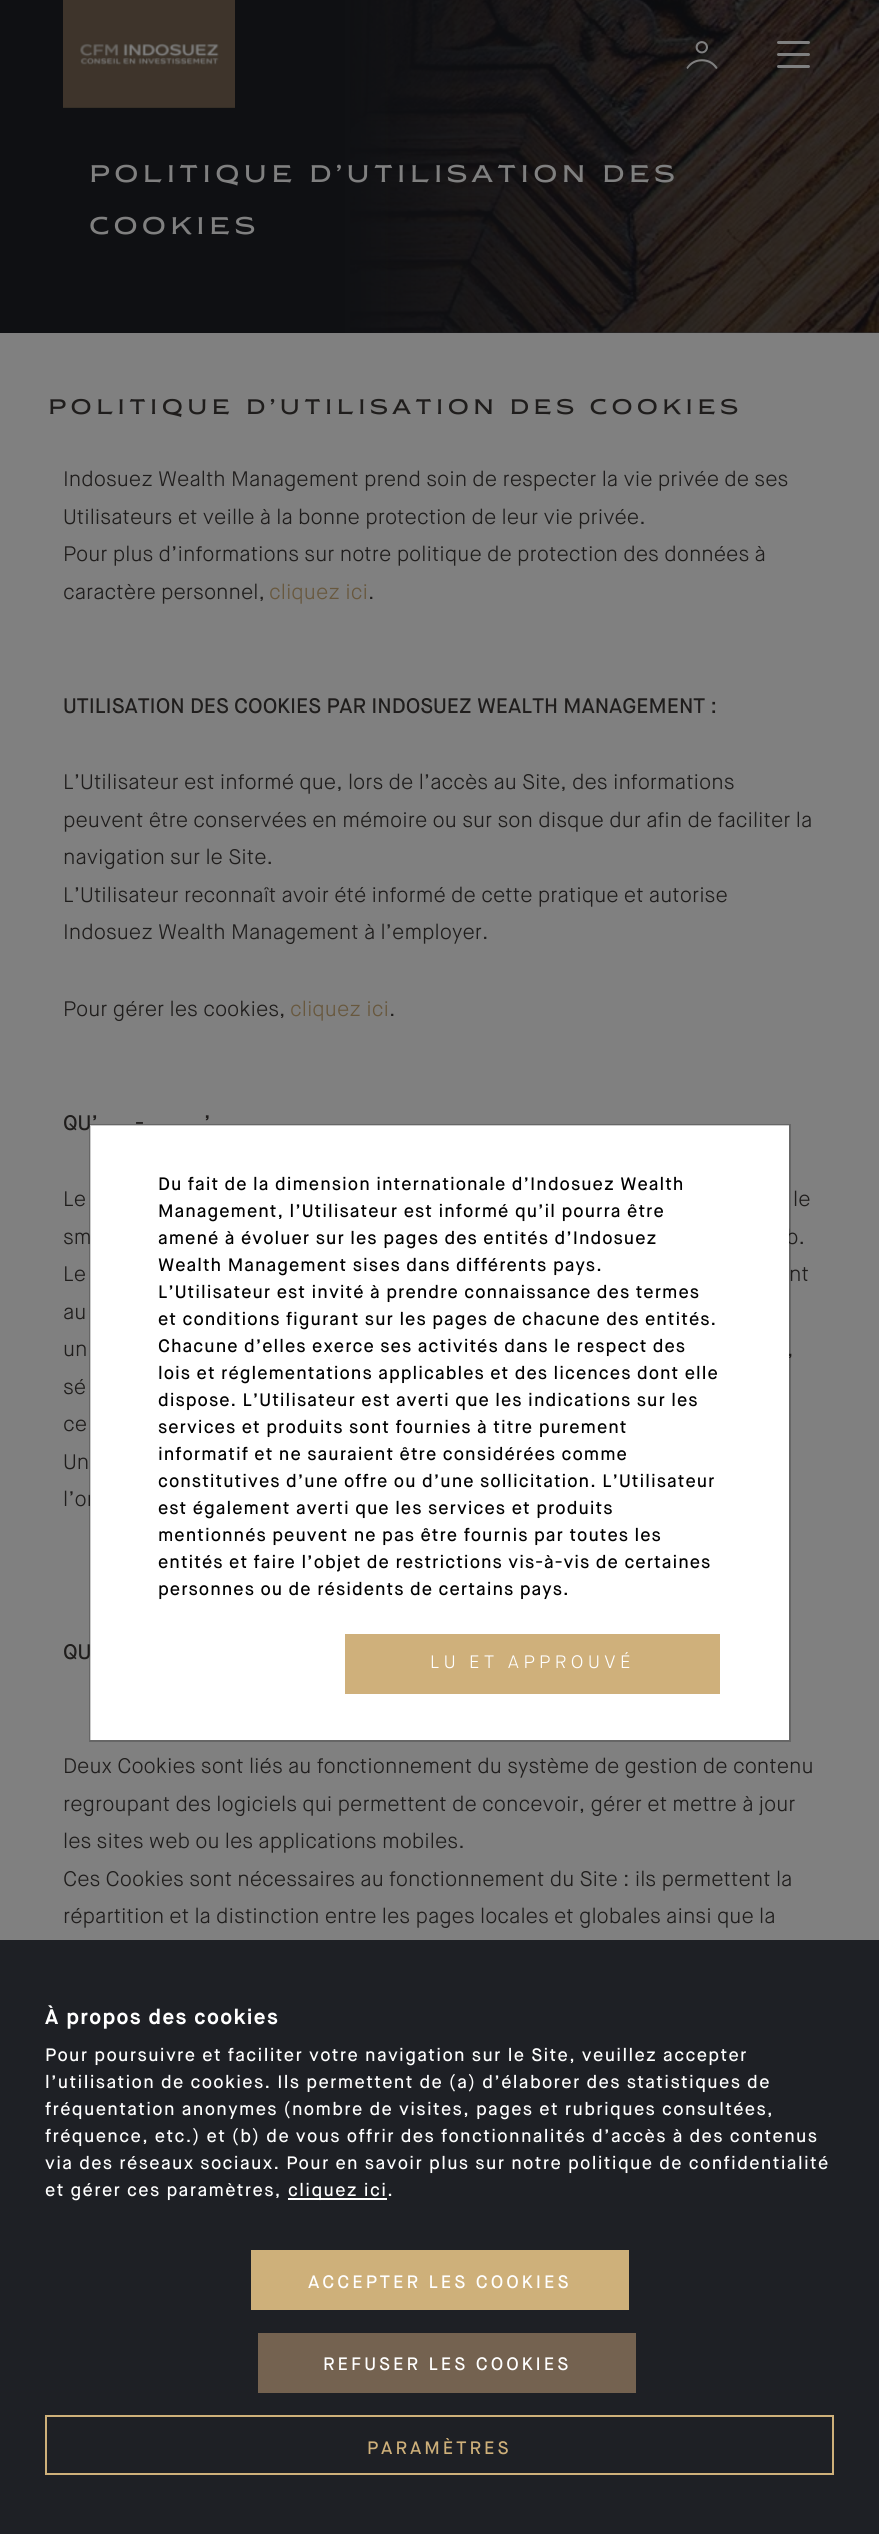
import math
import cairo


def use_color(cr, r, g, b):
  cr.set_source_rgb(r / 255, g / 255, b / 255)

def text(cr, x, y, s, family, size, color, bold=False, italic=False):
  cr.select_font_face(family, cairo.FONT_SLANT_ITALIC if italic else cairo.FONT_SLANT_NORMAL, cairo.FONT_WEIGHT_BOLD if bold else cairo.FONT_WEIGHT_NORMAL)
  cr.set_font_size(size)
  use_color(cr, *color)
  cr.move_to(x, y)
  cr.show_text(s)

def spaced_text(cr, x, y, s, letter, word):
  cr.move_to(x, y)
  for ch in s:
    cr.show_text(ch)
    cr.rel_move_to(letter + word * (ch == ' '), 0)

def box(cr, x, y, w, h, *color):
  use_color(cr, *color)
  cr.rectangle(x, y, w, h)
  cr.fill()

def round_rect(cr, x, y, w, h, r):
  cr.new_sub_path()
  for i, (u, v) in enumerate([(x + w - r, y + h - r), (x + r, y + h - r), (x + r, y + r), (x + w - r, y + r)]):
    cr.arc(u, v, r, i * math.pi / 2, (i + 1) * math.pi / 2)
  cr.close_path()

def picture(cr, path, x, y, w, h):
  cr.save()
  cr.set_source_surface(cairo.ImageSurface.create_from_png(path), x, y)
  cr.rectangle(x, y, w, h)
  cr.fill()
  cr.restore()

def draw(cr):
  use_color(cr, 128, 128, 128)
  cr.paint()
  picture(cr, "img_03.png", 350, 0, 529, 333)
  gradient = cairo.LinearGradient(879, 155, 0, 155)
  gradient.add_color_stop_rgba(0.17, 0.059, 0.063, 0.075, 0.7)
  gradient.add_color_stop_rgba(0.61, 0.059, 0.063, 0.075, 1)
  cr.set_source(gradient)
  cr.rectangle(0, 0, 879, 333)
  cr.fill()
  picture(cr, "img_01.png", 63, 0, 172, 108)
  picture(cr, "img_02.png", 686, 41, 32, 28)
  use_color(cr, 128, 128, 128)
  round_rect(cr, 777, 41, 33, 3, 1.5)
  cr.fill()
  round_rect(cr, 777, 53, 33, 3, 1.5)
  cr.fill()
  round_rect(cr, 777, 65, 33, 3, 1.5)
  cr.fill()
  box(cr, 0, 1940, 879, 594, 30, 32, 37)
  box(cr, 288, 2198, 99, 2, 255, 255, 255)
  box(cr, 251, 2250, 378, 60, 206, 176, 122)
  box(cr, 258, 2333, 378, 60, 116, 98, 80)
  cr.rectangle(46, 2416, 787, 58)
  use_color(cr, 206, 176, 122)
  cr.stroke()
  cr.select_font_face("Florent")
  cr.set_font_size(24)
  use_color(cr, 128, 128, 128)
  spaced_text(cr, 89, 182, "POLITIQUE D’UTILISATION DES", 4.2, 0)
  spaced_text(cr, 89, 234, "COOKIES", 4.2, 0)
  cr.set_font_size(21)
  use_color(cr, 31, 29, 28)
  spaced_text(cr, 48, 414, "POLITIQUE D’UTILISATION DES COOKIES", 4.2, 0)
  text(cr, 63, 486, "Indosuez Wealth Management prend soin de respecter la vie privée de ses", "Maison Neue Light", 21, (31, 29, 28))
  text(cr, 63, 524, "Utilisateurs et veille à la bonne protection de leur vie privée.", "Maison Neue Light", 21, (31, 29, 28))
  text(cr, 63, 561, "Pour plus d’informations sur notre politique de protection des données à", "Maison Neue Light", 21, (31, 29, 28))
  text(cr, 63, 599, "caractère personnel,", "Maison Neue Light", 21, (31, 29, 28))
  text(cr, 269, 599, "cliquez ici", "Maison Neue Light", 21, (104, 88, 62))
  text(cr, 368, 599, ".", "Maison Neue Light", 21, (31, 29, 28))
  text(cr, 63, 713, "UTILISATION DES COOKIES PAR INDOSUEZ WEALTH MANAGEMENT :", "Maison Neue Medium", 21, (31, 29, 28))
  text(cr, 63, 789, "L’Utilisateur est informé que, lors de l’accès au Site, des informations", "Maison Neue Light", 21, (31, 29, 28))
  text(cr, 63, 827, "peuvent être conservées en mémoire ou sur son disque dur afin de faciliter la", "Maison Neue Light", 21, (31, 29, 28))
  text(cr, 63, 864, "navigation sur le Site.", "Maison Neue Light", 21, (31, 29, 28))
  text(cr, 63, 902, "L’Utilisateur reconnaît avoir été informé de cette pratique et autorise", "Maison Neue Light", 21, (31, 29, 28))
  text(cr, 63, 939, "Indosuez Wealth Management à l’employer.", "Maison Neue Light", 21, (31, 29, 28))
  text(cr, 63, 1016, "Pour gérer les cookies,", "Maison Neue Light", 21, (31, 29, 28))
  text(cr, 290, 1016, "cliquez ici", "Maison Neue Light", 21, (104, 88, 62))
  text(cr, 389, 1016, ".", "Maison Neue Light", 21, (31, 29, 28))
  text(cr, 63, 1130, "QU’", "Maison Neue Medium", 21, (31, 29, 28))
  text(cr, 204, 1130, "’", "Maison Neue Medium", 21, (31, 29, 28))
  text(cr, 135, 1130, "-", "Maison Neue Medium", 21, (31, 29, 28))
  text(cr, 63, 1206, "Le", "Maison Neue Light", 21, (31, 29, 28))
  text(cr, 793, 1206, "le", "Maison Neue Light", 21, (31, 29, 28))
  text(cr, 63, 1244, "sm", "Maison Neue Light", 21, (31, 29, 28))
  text(cr, 786, 1244, "b.", "Maison Neue Light", 21, (31, 29, 28))
  text(cr, 63, 1281, "Le", "Maison Neue Light", 21, (31, 29, 28))
  text(cr, 789, 1281, "nt", "Maison Neue Light", 21, (31, 29, 28))
  text(cr, 63, 1319, "au", "Maison Neue Light", 21, (31, 29, 28))
  text(cr, 63, 1356, "un", "Maison Neue Light", 21, (31, 29, 28))
  text(cr, 787, 1356, ",", "Maison Neue Light", 21, (31, 29, 28))
  text(cr, 63, 1394, "sé", "Maison Neue Light", 21, (31, 29, 28))
  text(cr, 63, 1431, "ce", "Maison Neue Light", 21, (31, 29, 28))
  text(cr, 63, 1469, "Un", "Maison Neue Light", 21, (31, 29, 28))
  text(cr, 63, 1506, "l’or", "Maison Neue Light", 21, (31, 29, 28))
  text(cr, 63, 1659, "QU", "Maison Neue Medium", 21, (31, 29, 28))
  text(cr, 63, 1773, "Deux Cookies sont liés au fonctionnement du système de gestion de contenu", "Maison Neue Light", 21, (31, 29, 28))
  text(cr, 63, 1811, "regroupant des logiciels qui permettent de concevoir, gérer et mettre à jour", "Maison Neue Light", 21, (31, 29, 28))
  text(cr, 63, 1848, "les sites web ou les applications mobiles.", "Maison Neue Light", 21, (31, 29, 28))
  text(cr, 63, 1886, "Ces Cookies sont nécessaires au fonctionnement du Site : ils permettent la", "Maison Neue Light", 21, (31, 29, 28))
  text(cr, 63, 1923, "répartition et la distinction entre les pages locales et globales ainsi que la", "Maison Neue Light", 21, (31, 29, 28))
  box(cr, 90, 1125, 699, 615, 255, 255, 255)
  cr.rectangle(90, 1125, 700, 616)
  cr.set_source_rgba(0, 0, 0, 0.2)
  cr.stroke()
  cr.select_font_face("Maison Neue Medium")
  cr.set_font_size(18)
  use_color(cr, 0, 0, 0)
  spaced_text(cr, 158, 1190, "Du fait de la dimension internationale d’Indosuez Wealth", 1, 0)
  spaced_text(cr, 158, 1217, "Management, l’Utilisateur est informé qu’il pourra être", 1, 0)
  spaced_text(cr, 158, 1244, "amené à évoluer sur les pages des entités d’Indosuez", 1, 0)
  spaced_text(cr, 158, 1271, "Wealth Management sises dans différents pays.", 1, 0)
  spaced_text(cr, 158, 1298, "L’Utilisateur est invité à prendre connaissance des termes", 1, 0)
  spaced_text(cr, 158, 1325, "et conditions figurant sur les pages de chacune des entités.", 1, 0)
  spaced_text(cr, 158, 1352, "Chacune d’elles exerce ses activités dans le respect des", 1, 0)
  spaced_text(cr, 158, 1379, "lois et réglementations applicables et des licences dont elle", 1, 0)
  spaced_text(cr, 158, 1406, "dispose. L’Utilisateur est averti que les indications sur les", 1, 0)
  spaced_text(cr, 158, 1433, "services et produits sont fournies à titre purement", 1, 0)
  spaced_text(cr, 158, 1460, "informatif et ne sauraient être considérées comme", 1, 0)
  spaced_text(cr, 158, 1487, "constitutives d’une offre ou d’une sollicitation. L’Utilisateur", 1, 0)
  spaced_text(cr, 158, 1514, "est également averti que les services et produits", 1, 0)
  spaced_text(cr, 158, 1541, "mentionnés peuvent ne pas être fournis par toutes les", 1, 0)
  spaced_text(cr, 158, 1568, "entités et faire l’objet de restrictions vis-à-vis de certaines", 1, 0)
  spaced_text(cr, 158, 1595, "personnes ou de résidents de certains pays.", 1, 0)
  box(cr, 345, 1634, 375, 60, 207, 176, 123)
  cr.select_font_face("Maison Neue Light")
  use_color(cr, 255, 255, 255)
  spaced_text(cr, 430, 1668, "LU ET APPROUVÉ", 4.5, 0)
  cr.select_font_face("Maison Neue", cairo.FONT_SLANT_NORMAL, cairo.FONT_WEIGHT_BOLD)
  cr.set_font_size(21)
  spaced_text(cr, 45, 2024, "À propos des cookies", 1.33, 0)
  cr.select_font_face("Maison Neue Medium")
  cr.set_font_size(18)
  spaced_text(cr, 45, 2061, "Pour poursuivre et faciliter votre navigation sur le Site, veuillez accepter", 1.33, 0)
  spaced_text(cr, 45, 2088, "l’utilisation de cookies. Ils permettent de (a) d’élaborer des statistiques de", 1.33, 0)
  spaced_text(cr, 45, 2115, "fréquentation anonymes (nombre de visites, pages et rubriques consultées,", 1.33, 0)
  spaced_text(cr, 45, 2142, "fréquence, etc.) et (b) de vous offrir des fonctionnalités d’accès à des contenus", 1.33, 0)
  spaced_text(cr, 45, 2169, "via des réseaux sociaux. Pour en savoir plus sur notre politique de confidentialité", 1.33, 0)
  spaced_text(cr, 45, 2196, "et gérer ces paramètres,", 1.33, 0)
  spaced_text(cr, 288, 2196, "cliquez ici.", 1.33, 0)
  spaced_text(cr, 308, 2288, "ACCEPTER LES COOKIES", 3, 0)
  spaced_text(cr, 323, 2370, "REFUSER LES COOKIES", 3, 0)
  use_color(cr, 206, 176, 122)
  spaced_text(cr, 367, 2454, "PARAMÈTRES", 3, 0)


surface = cairo.ImageSurface(cairo.FORMAT_RGB24, 879, 2534)
cr = cairo.Context(surface)
options = cairo.FontOptions()
options.set_hint_metrics(cairo.HINT_METRICS_OFF)
options.set_hint_style(cairo.HINT_STYLE_NONE)
cr.set_font_options(options)
cr.set_miter_limit(4)
draw(cr)
surface.write_to_png("out.png")
